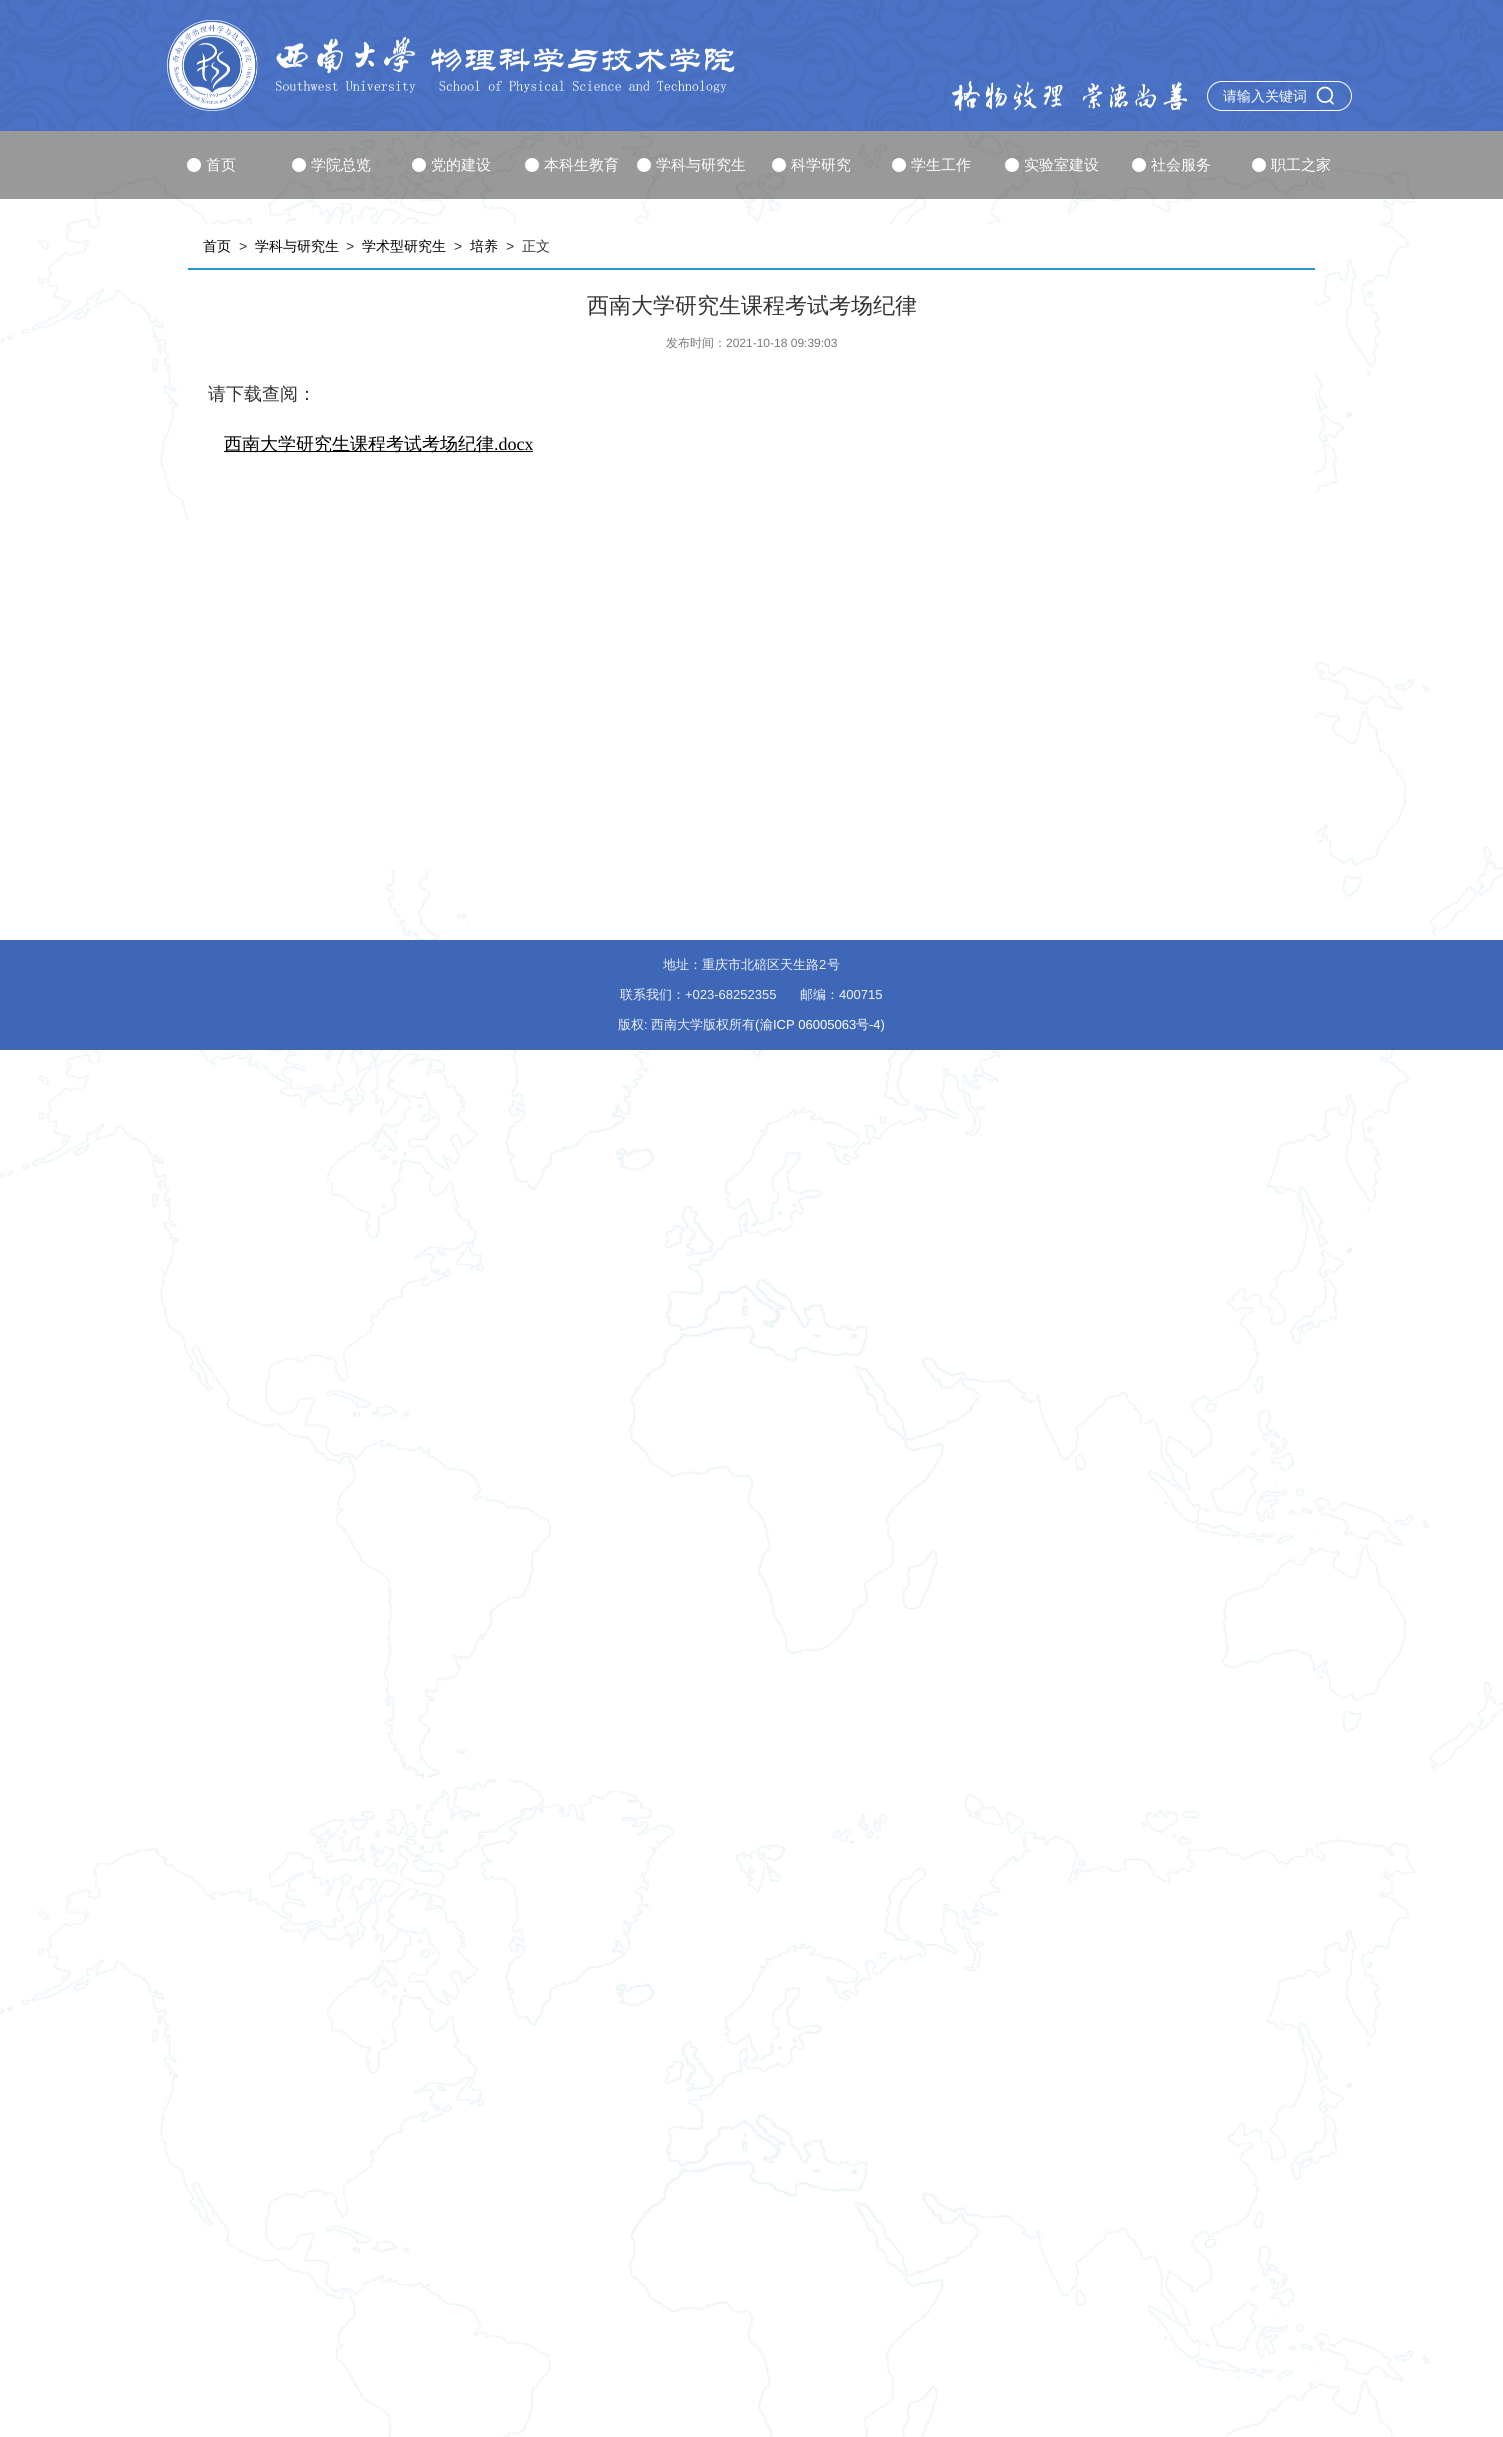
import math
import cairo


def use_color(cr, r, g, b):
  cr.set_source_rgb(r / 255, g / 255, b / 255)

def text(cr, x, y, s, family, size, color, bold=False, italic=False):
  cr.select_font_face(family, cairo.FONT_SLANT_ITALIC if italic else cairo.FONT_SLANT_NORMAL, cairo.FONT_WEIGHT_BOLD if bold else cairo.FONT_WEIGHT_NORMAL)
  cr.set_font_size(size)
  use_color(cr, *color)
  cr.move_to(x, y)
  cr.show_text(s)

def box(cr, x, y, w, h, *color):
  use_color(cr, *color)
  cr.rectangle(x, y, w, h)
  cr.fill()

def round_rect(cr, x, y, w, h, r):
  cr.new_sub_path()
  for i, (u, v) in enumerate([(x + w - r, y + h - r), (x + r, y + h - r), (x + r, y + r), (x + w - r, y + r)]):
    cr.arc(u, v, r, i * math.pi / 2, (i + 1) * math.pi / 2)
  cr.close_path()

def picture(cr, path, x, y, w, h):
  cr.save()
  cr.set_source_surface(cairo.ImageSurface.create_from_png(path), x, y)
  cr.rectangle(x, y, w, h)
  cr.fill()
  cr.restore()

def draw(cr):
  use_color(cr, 255, 255, 255)
  cr.paint()
  picture(cr, "img_01.png", 0, 131, 1503, 2306)
  picture(cr, "img_02.png", 0, 0, 1503, 131)
  picture(cr, "img_03.png", 167, 20, 568, 91)
  picture(cr, "img_04.png", 952, 81, 235, 30)
  round_rect(cr, 1207.5, 81.5, 144, 29, 14.5)
  use_color(cr, 255, 255, 255)
  cr.set_line_width(1)
  cr.stroke()
  picture(cr, "img_05.png", 1316, 86, 18, 19)
  cr.set_source_rgba(0, 0, 0, 0.4)
  cr.rectangle(0, 131, 1503, 68)
  cr.fill()
  picture(cr, "img_06.png", 187, 158, 14, 14)
  picture(cr, "img_06.png", 292, 158, 14, 14)
  picture(cr, "img_07.png", 412, 158, 14, 14)
  picture(cr, "img_06.png", 525, 158, 14, 14)
  picture(cr, "img_08.png", 637, 158, 14, 14)
  picture(cr, "img_06.png", 772, 158, 14, 14)
  picture(cr, "img_06.png", 892, 158, 14, 14)
  picture(cr, "img_09.png", 1005, 158, 14, 14)
  picture(cr, "img_06.png", 1132, 158, 14, 14)
  picture(cr, "img_06.png", 1252, 158, 14, 14)
  box(cr, 188, 224, 1127, 646, 255, 255, 255)
  box(cr, 188, 268, 1127, 2, 41, 150, 205)
  box(cr, 224, 451, 309, 1, 0, 0, 0)
  box(cr, 0, 940, 1503, 110, 63, 103, 183)
  text(cr, 1223, 101, "请输入关键词", "WenQuanYi Zen Hei Medium", 14, (255, 255, 255))
  text(cr, 206, 170, "首页", "WenQuanYi Zen Hei Medium", 15, (255, 255, 255))
  text(cr, 311, 170, "学院总览", "WenQuanYi Zen Hei Medium", 15, (255, 255, 255))
  text(cr, 431, 170, "党的建设", "WenQuanYi Zen Hei Medium", 15, (255, 255, 255))
  text(cr, 544, 170, "本科生教育", "WenQuanYi Zen Hei Medium", 15, (255, 255, 255))
  text(cr, 656, 170, "学科与研究生", "WenQuanYi Zen Hei Medium", 15, (255, 255, 255))
  text(cr, 791, 170, "科学研究", "WenQuanYi Zen Hei Medium", 15, (255, 255, 255))
  text(cr, 911, 170, "学生工作", "WenQuanYi Zen Hei Medium", 15, (255, 255, 255))
  text(cr, 1024, 170, "实验室建设", "WenQuanYi Zen Hei Medium", 15, (255, 255, 255))
  text(cr, 1151, 170, "社会服务", "WenQuanYi Zen Hei Medium", 15, (255, 255, 255))
  text(cr, 1271, 170, "职工之家", "WenQuanYi Zen Hei Medium", 15, (255, 255, 255))
  text(cr, 203, 251, "首页", "WenQuanYi Zen Hei Medium", 14, (0, 0, 0))
  text(cr, 239, 251, ">", "Liberation Sans", 14, (51, 51, 51))
  text(cr, 255, 251, "学科与研究生", "WenQuanYi Zen Hei Medium", 14, (0, 0, 0))
  text(cr, 346, 251, ">", "Liberation Sans", 14, (51, 51, 51))
  text(cr, 362, 251, "学术型研究生", "WenQuanYi Zen Hei Medium", 14, (0, 0, 0))
  text(cr, 454, 251, ">", "Liberation Sans", 14, (51, 51, 51))
  text(cr, 470, 251, "培养", "WenQuanYi Zen Hei Medium", 14, (0, 0, 0))
  text(cr, 506, 251, ">", "Liberation Sans", 14, (51, 51, 51))
  text(cr, 522, 251, "正文", "WenQuanYi Zen Hei Medium", 14, (51, 51, 51))
  text(cr, 587, 313, "西南大学研究生课程考试考场纪律", "WenQuanYi Zen Hei Medium", 22, (51, 51, 51))
  text(cr, 666, 347, "发布时间：", "WenQuanYi Zen Hei Medium", 12, (120, 120, 120))
  text(cr, 726, 347, "2021-10-18 09:39:03", "Liberation Sans", 12, (120, 120, 120))
  text(cr, 208, 400, "请下载查阅：", "WenQuanYi Zen Hei Medium", 18, (51, 51, 51))
  text(cr, 224, 450, "西南大学研究生课程考试考场纪律", "WenQuanYi Zen Hei Medium", 18, (0, 0, 0))
  text(cr, 494, 450, ".docx", "Liberation Serif", 18, (0, 0, 0))
  text(cr, 663, 969, "地址：重庆市北碚区天生路", "WenQuanYi Zen Hei Medium", 13, (238, 242, 250))
  text(cr, 819, 969, "2", "Liberation Sans", 13, (238, 242, 250))
  text(cr, 827, 969, "号", "WenQuanYi Zen Hei Medium", 13, (238, 242, 250))
  text(cr, 620, 999, "联系我们：", "WenQuanYi Zen Hei Medium", 13, (238, 242, 250))
  text(cr, 685, 999, "+023-68252355", "Liberation Sans", 13, (238, 242, 250))
  text(cr, 800, 999, "邮编：", "WenQuanYi Zen Hei Medium", 13, (238, 242, 250))
  text(cr, 839, 999, "400715", "Liberation Sans", 13, (238, 242, 250))
  text(cr, 618, 1029, "版权", "WenQuanYi Zen Hei Medium", 13, (238, 242, 250))
  text(cr, 644, 1029, ":", "Liberation Sans", 13, (238, 242, 250))
  text(cr, 651, 1029, "西南大学版权所有", "WenQuanYi Zen Hei Medium", 13, (238, 242, 250))
  text(cr, 755, 1029, "(", "Liberation Sans", 13, (255, 255, 255))
  text(cr, 760, 1029, "渝", "WenQuanYi Zen Hei Medium", 13, (255, 255, 255))
  text(cr, 773, 1029, "ICP 06005063", "Liberation Sans", 13, (255, 255, 255))
  text(cr, 856, 1029, "号", "WenQuanYi Zen Hei Medium", 13, (255, 255, 255))
  text(cr, 869, 1029, "-4)", "Liberation Sans", 13, (255, 255, 255))


surface = cairo.ImageSurface(cairo.FORMAT_RGB24, 1503, 2437)
cr = cairo.Context(surface)
options = cairo.FontOptions()
options.set_hint_metrics(cairo.HINT_METRICS_OFF)
options.set_hint_style(cairo.HINT_STYLE_NONE)
cr.set_font_options(options)
cr.set_miter_limit(4)
draw(cr)
surface.write_to_png("out.png")
